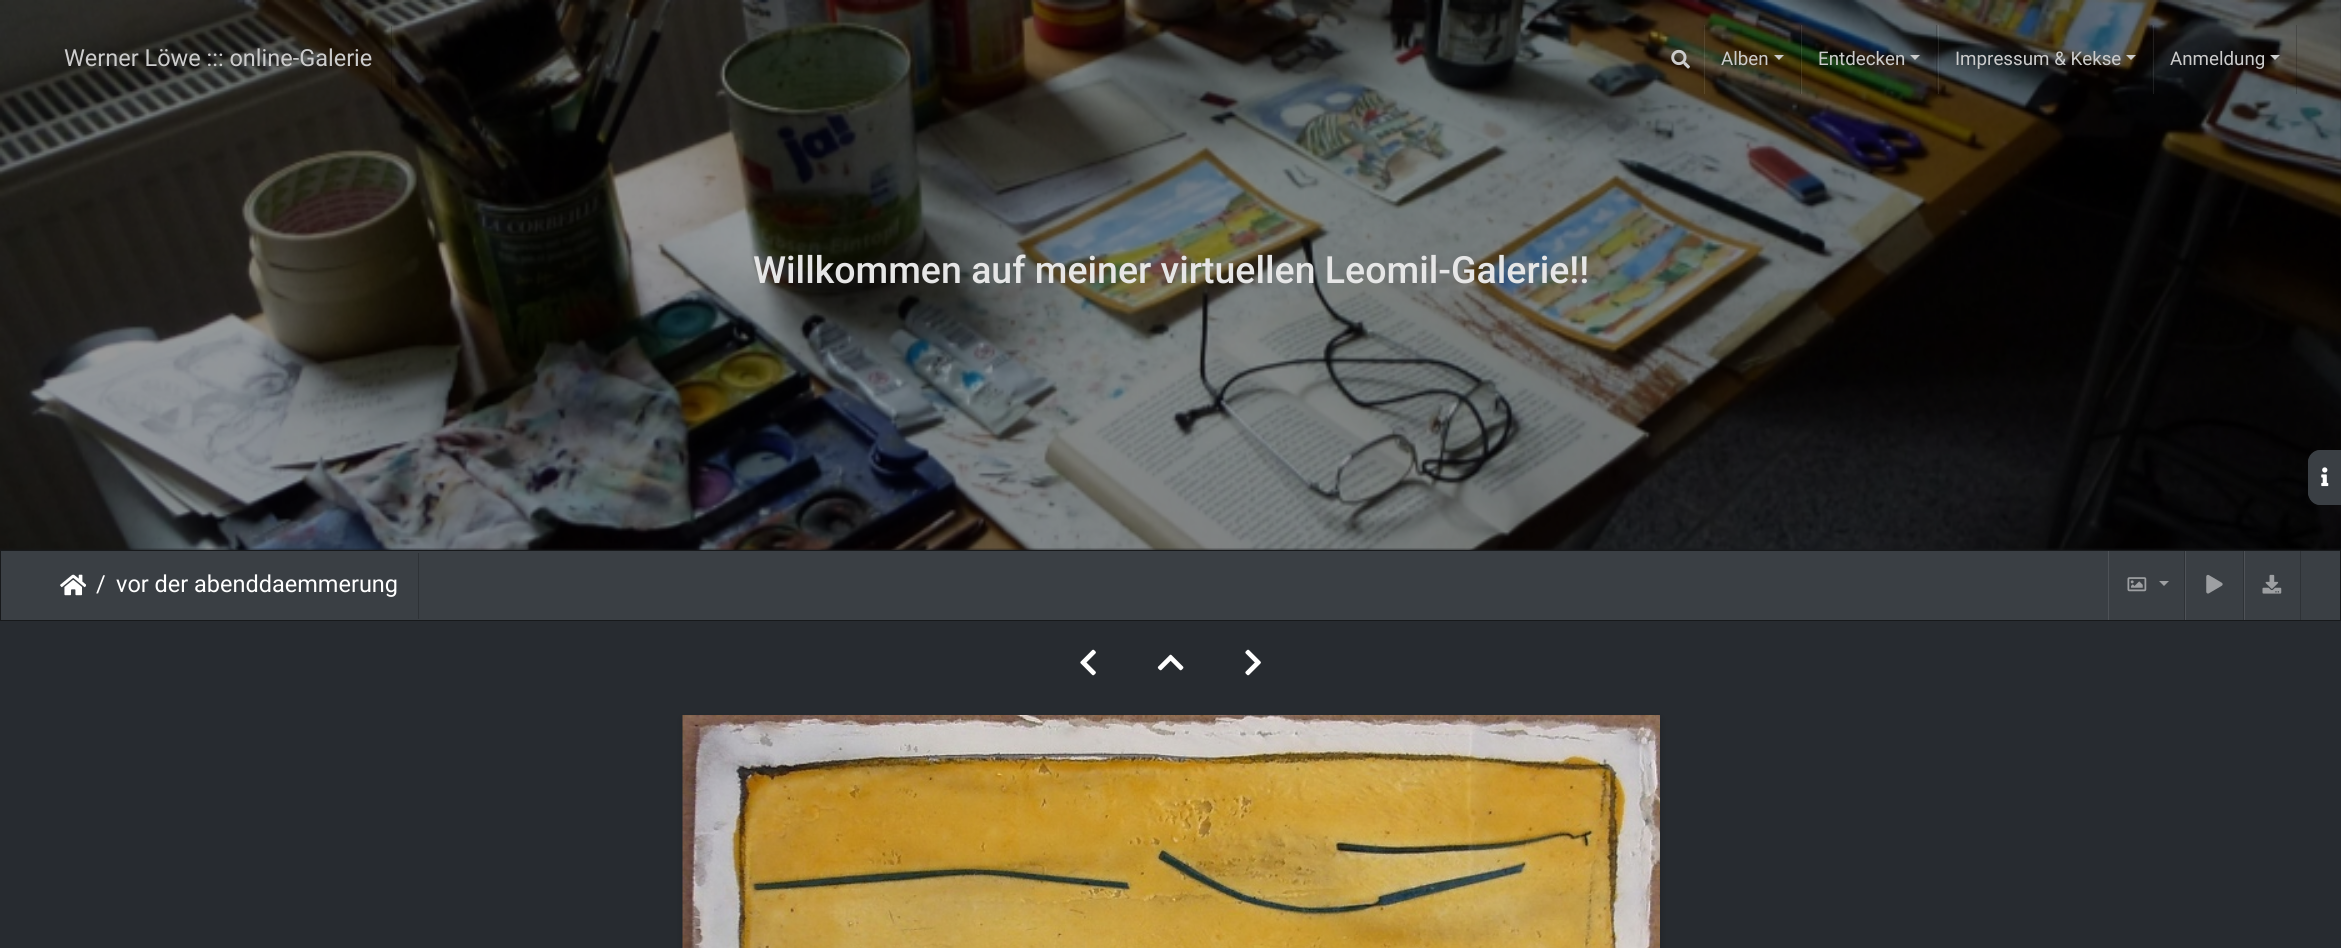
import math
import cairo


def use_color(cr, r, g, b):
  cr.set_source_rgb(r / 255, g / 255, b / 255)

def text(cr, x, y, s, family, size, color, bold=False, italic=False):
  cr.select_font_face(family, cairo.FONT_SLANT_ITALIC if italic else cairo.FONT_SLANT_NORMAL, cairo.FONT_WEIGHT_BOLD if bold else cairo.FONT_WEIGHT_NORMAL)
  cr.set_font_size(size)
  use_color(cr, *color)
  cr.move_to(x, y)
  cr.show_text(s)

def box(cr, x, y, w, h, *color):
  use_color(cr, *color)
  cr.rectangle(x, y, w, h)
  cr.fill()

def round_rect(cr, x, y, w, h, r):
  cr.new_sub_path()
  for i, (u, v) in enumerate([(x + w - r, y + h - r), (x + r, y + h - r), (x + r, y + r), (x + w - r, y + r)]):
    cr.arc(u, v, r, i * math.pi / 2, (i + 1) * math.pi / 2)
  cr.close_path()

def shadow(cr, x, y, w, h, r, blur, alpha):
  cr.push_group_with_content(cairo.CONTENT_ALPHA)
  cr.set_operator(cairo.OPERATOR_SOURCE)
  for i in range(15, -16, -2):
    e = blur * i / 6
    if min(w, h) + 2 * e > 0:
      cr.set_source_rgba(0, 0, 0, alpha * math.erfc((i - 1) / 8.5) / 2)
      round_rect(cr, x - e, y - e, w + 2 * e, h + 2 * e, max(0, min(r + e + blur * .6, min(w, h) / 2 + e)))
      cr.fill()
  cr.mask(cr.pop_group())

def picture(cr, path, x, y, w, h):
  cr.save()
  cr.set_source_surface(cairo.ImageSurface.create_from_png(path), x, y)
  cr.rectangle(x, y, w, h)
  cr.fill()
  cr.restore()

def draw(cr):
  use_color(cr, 39, 43, 48)
  cr.paint()
  box(cr, 0, 0, 2341, 550, 23, 26, 29)
  picture(cr, "img_02.png", 0, 0, 2341, 550)
  cr.set_source_rgba(0, 0, 0, 0.2)
  cr.rectangle(391, 26, 1, 65)
  cr.fill()
  picture(cr, "img_01.png", 1671, 49, 19, 20)
  cr.rectangle(1800, 25, 1, 69)
  cr.fill()
  cr.set_source_rgba(1, 1, 1, 0.1)
  cr.rectangle(1704, 25, 1, 69)
  cr.fill()
  use_color(cr, 204, 204, 204)
  cr.new_path()
  cr.move_to(1774, 55)
  cr.line_to(1784, 55)
  cr.line_to(1779, 60)
  cr.close_path()
  cr.fill()
  cr.set_source_rgba(0, 0, 0, 0.2)
  cr.rectangle(1936, 25, 1, 69)
  cr.fill()
  cr.set_source_rgba(1, 1, 1, 0.1)
  cr.rectangle(1801, 25, 1, 69)
  cr.fill()
  use_color(cr, 204, 204, 204)
  cr.new_path()
  cr.move_to(1910, 55)
  cr.line_to(1920, 55)
  cr.line_to(1915, 60)
  cr.close_path()
  cr.fill()
  cr.set_source_rgba(0, 0, 0, 0.2)
  cr.rectangle(2151, 25, 1, 55)
  cr.fill()
  cr.set_source_rgba(1, 1, 1, 0.1)
  cr.rectangle(1938, 25, 1, 69)
  cr.fill()
  use_color(cr, 204, 204, 204)
  cr.new_path()
  cr.move_to(2126, 55)
  cr.line_to(2136, 55)
  cr.line_to(2131, 60)
  cr.close_path()
  cr.fill()
  cr.set_source_rgba(0, 0, 0, 0.2)
  cr.rectangle(2296, 25, 1, 69)
  cr.fill()
  cr.set_source_rgba(1, 1, 1, 0.1)
  cr.rectangle(2153, 25, 1, 69)
  cr.fill()
  use_color(cr, 204, 204, 204)
  cr.new_path()
  cr.move_to(2270, 55)
  cr.line_to(2280, 55)
  cr.line_to(2275, 60)
  cr.close_path()
  cr.fill()
  use_color(cr, 58, 63, 68)
  cr.rectangle(0.5, 550.5, 2340, 70)
  cr.fill_preserve()
  use_color(cr, 23, 25, 27)
  cr.set_line_width(1)
  cr.stroke()
  box(cr, 418, 553, 1, 66, 46, 50, 54)
  picture(cr, "img_03.png", 60, 574, 26, 22)
  box(cr, 2184, 551, 1, 69, 46, 50, 54)
  box(cr, 2108, 551, 1, 69, 78, 82, 87)
  picture(cr, "img_04.png", 2127, 577, 20, 15)
  use_color(cr, 157, 159, 162)
  cr.new_path()
  cr.move_to(2159, 581)
  cr.line_to(2169, 581)
  cr.line_to(2164, 586)
  cr.close_path()
  cr.fill()
  box(cr, 2243, 551, 1, 69, 46, 50, 54)
  box(cr, 2185, 551, 1, 69, 78, 82, 87)
  picture(cr, "img_05.png", 2206, 574, 17, 20)
  box(cr, 2300, 551, 1, 69, 46, 50, 54)
  box(cr, 2244, 551, 1, 69, 78, 82, 87)
  picture(cr, "img_06.png", 2262, 574, 20, 20)
  use_color(cr, 58, 63, 68)
  cr.new_path()
  cr.move_to(2321, 450)
  cr.line_to(2341, 450)
  cr.line_to(2341, 505)
  cr.line_to(2321, 505)
  cr.curve_to(2314, 505, 2308, 499, 2308, 492)
  cr.line_to(2308, 463)
  cr.curve_to(2308, 456, 2314, 450, 2321, 450)
  cr.close_path()
  cr.fill()
  cr.set_fill_rule(cairo.FILL_RULE_EVEN_ODD)
  cr.new_path()
  cr.move_to(2320, 450)
  cr.line_to(2341, 450)
  cr.line_to(2341, 505)
  cr.line_to(2320, 505)
  cr.curve_to(2313, 505, 2308, 499, 2308, 492)
  cr.line_to(2308, 462)
  cr.curve_to(2308, 456, 2313, 450, 2320, 450)
  cr.close_path()
  cr.move_to(2320, 451)
  cr.line_to(2341, 451)
  cr.line_to(2341, 504)
  cr.line_to(2320, 504)
  cr.curve_to(2314, 504, 2309, 499, 2309, 492)
  cr.line_to(2309, 462)
  cr.curve_to(2309, 456, 2314, 451, 2320, 451)
  cr.close_path()
  cr.fill()
  picture(cr, "img_07.png", 2321, 467, 8, 20)
  picture(cr, "img_08.png", 1080, 649, 16, 27)
  picture(cr, "img_09.png", 1157, 654, 27, 17)
  picture(cr, "img_10.png", 1245, 649, 16, 27)
  use_color(cr, 0, 0, 0)
  shadow(cr, 683, 719, 977, 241, 0, 4, 0.23)
  picture(cr, "img_11.png", 682, 715, 978, 233)
  text(cr, 64, 66, "Werner Löwe ::: online-Galerie", "Roboto", 23.5, (204, 204, 204))
  text(cr, 1721, 65, "Alben", "Roboto", 18.75, (204, 204, 204))
  text(cr, 1818, 65, "Entdecken", "Roboto", 18.75, (204, 204, 204))
  text(cr, 1955, 65, "Impressum & Kekse", "Roboto", 18.75, (204, 204, 204))
  text(cr, 2170, 65, "Anmeldung", "Roboto", 18.75, (204, 204, 204))
  text(cr, 753, 283, "Willkommen auf meiner virtuellen Leomil-Galerie!!", "Roboto Medium", 37.5, (230, 230, 230))
  text(cr, 96, 592, "/", "Roboto", 23.5, (255, 255, 255))
  text(cr, 116, 592, "vor der abenddaemmerung", "Roboto", 23.5, (255, 255, 255))


surface = cairo.ImageSurface(cairo.FORMAT_RGB24, 2341, 948)
cr = cairo.Context(surface)
options = cairo.FontOptions()
options.set_hint_metrics(cairo.HINT_METRICS_OFF)
options.set_hint_style(cairo.HINT_STYLE_NONE)
cr.set_font_options(options)
cr.set_miter_limit(4)
draw(cr)
surface.write_to_png("out.png")
